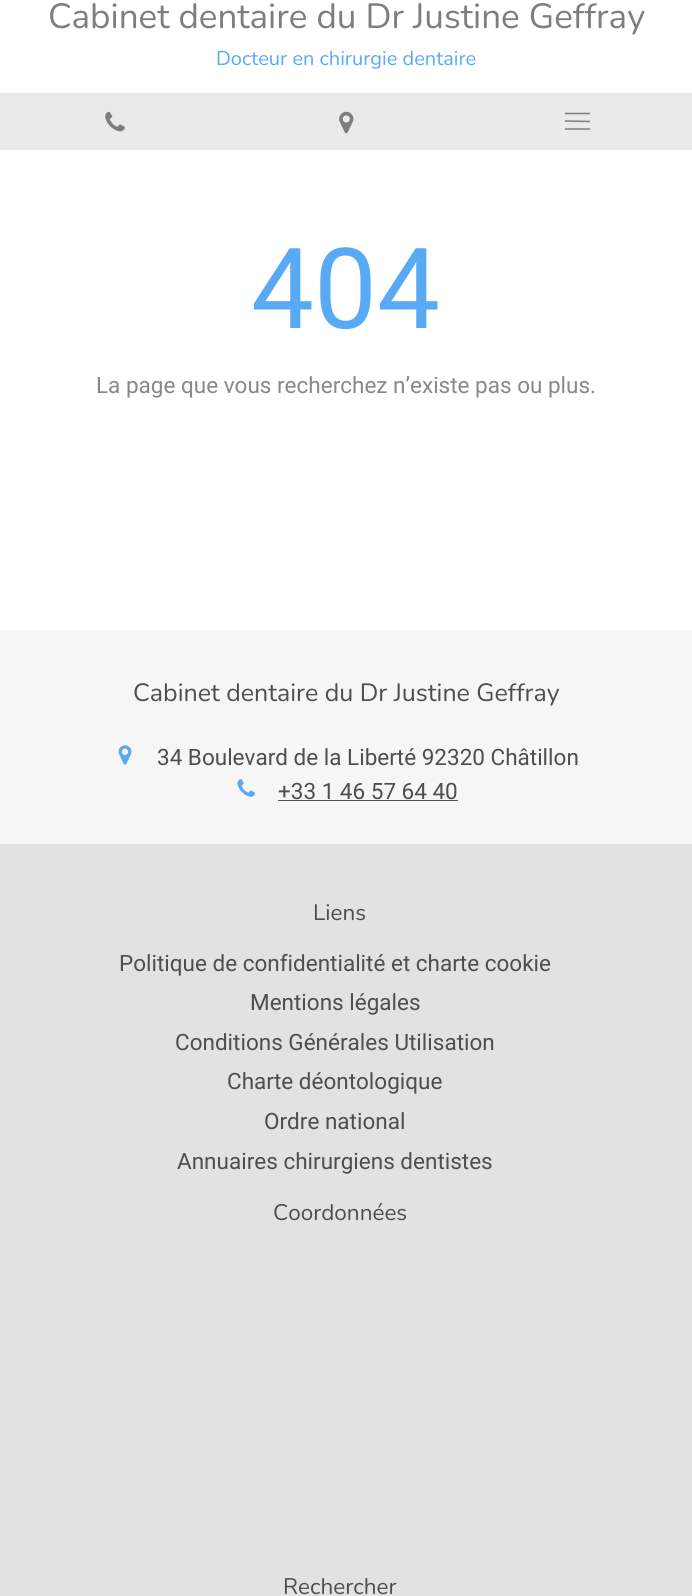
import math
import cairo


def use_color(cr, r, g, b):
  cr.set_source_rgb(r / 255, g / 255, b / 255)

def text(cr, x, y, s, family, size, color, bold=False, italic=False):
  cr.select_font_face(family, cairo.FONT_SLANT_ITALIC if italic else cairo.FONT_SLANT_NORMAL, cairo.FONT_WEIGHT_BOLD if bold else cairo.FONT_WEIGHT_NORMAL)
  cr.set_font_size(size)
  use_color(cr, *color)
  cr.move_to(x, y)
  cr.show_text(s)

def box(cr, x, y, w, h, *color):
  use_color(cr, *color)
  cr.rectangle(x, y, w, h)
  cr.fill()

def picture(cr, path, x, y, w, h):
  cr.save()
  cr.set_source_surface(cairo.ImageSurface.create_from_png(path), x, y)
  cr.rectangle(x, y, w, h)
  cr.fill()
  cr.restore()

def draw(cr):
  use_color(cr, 255, 255, 255)
  cr.paint()
  box(cr, 0, 93, 692, 57, 234, 234, 234)
  picture(cr, "img_01.png", 105, 111, 20, 21)
  picture(cr, "img_02.png", 339, 111, 15, 23)
  cr.new_path()
  cr.move_to(565, 121)
  cr.line_to(590, 121.5)
  cr.move_to(565, 113.5)
  cr.line_to(590, 113.5)
  use_color(cr, 126, 126, 126)
  cr.set_line_width(1.5)
  cr.stroke()
  box(cr, 565, 128, 25, 2, 153, 153, 153)
  box(cr, 0, 630, 692, 214, 246, 246, 246)
  picture(cr, "img_03.png", 118, 745, 14, 20)
  picture(cr, "img_04.png", 237, 779, 19, 18)
  box(cr, 278, 800, 180, 1, 78, 78, 78)
  box(cr, 0, 844, 692, 752, 226, 226, 226)
  text(cr, 48, 28, "Cabinet dentaire du Dr Justine Geffray", "Nunito", 35, (126, 126, 126))
  text(cr, 216, 65, "Docteur en chirurgie dentaire", "Nunito", 20, (89, 170, 244))
  text(cr, 251, 328, "404", "Roboto", 112, (89, 170, 244))
  text(cr, 96, 393, "La page que vous recherchez n’existe pas ou plus.", "Roboto", 22.5, (136, 136, 136))
  text(cr, 133, 701, "Cabinet dentaire du Dr Justine Geffray", "Nunito", 25, (78, 78, 78))
  text(cr, 157, 765, "34 Boulevard de la Liberté 92320 Châtillon", "Roboto", 22.5, (78, 78, 78))
  text(cr, 278, 799, "+33 1 46 57 64 40", "Roboto", 22.5, (78, 78, 78))
  text(cr, 313, 920, "Liens", "Nunito", 22.5, (78, 78, 78))
  text(cr, 119, 971, "Politique de confidentialité et charte cookie", "Roboto", 22.5, (78, 78, 78))
  text(cr, 250, 1010, "Mentions légales", "Roboto", 22.5, (78, 78, 78))
  text(cr, 175, 1050, "Conditions Générales Utilisation", "Roboto", 22.5, (78, 78, 78))
  text(cr, 227, 1089, "Charte déontologique", "Roboto", 22.5, (78, 78, 78))
  text(cr, 264, 1129, "Ordre national", "Roboto", 22.5, (78, 78, 78))
  text(cr, 177, 1169, "Annuaires chirurgiens dentistes", "Roboto", 22.5, (78, 78, 78))
  text(cr, 273, 1220, "Coordonnées", "Nunito", 22.5, (78, 78, 78))
  text(cr, 283, 1594, "Rechercher", "Nunito", 22.5, (78, 78, 78))


surface = cairo.ImageSurface(cairo.FORMAT_RGB24, 692, 1596)
cr = cairo.Context(surface)
options = cairo.FontOptions()
options.set_hint_metrics(cairo.HINT_METRICS_OFF)
options.set_hint_style(cairo.HINT_STYLE_NONE)
cr.set_font_options(options)
cr.set_miter_limit(4)
draw(cr)
surface.write_to_png("out.png")
